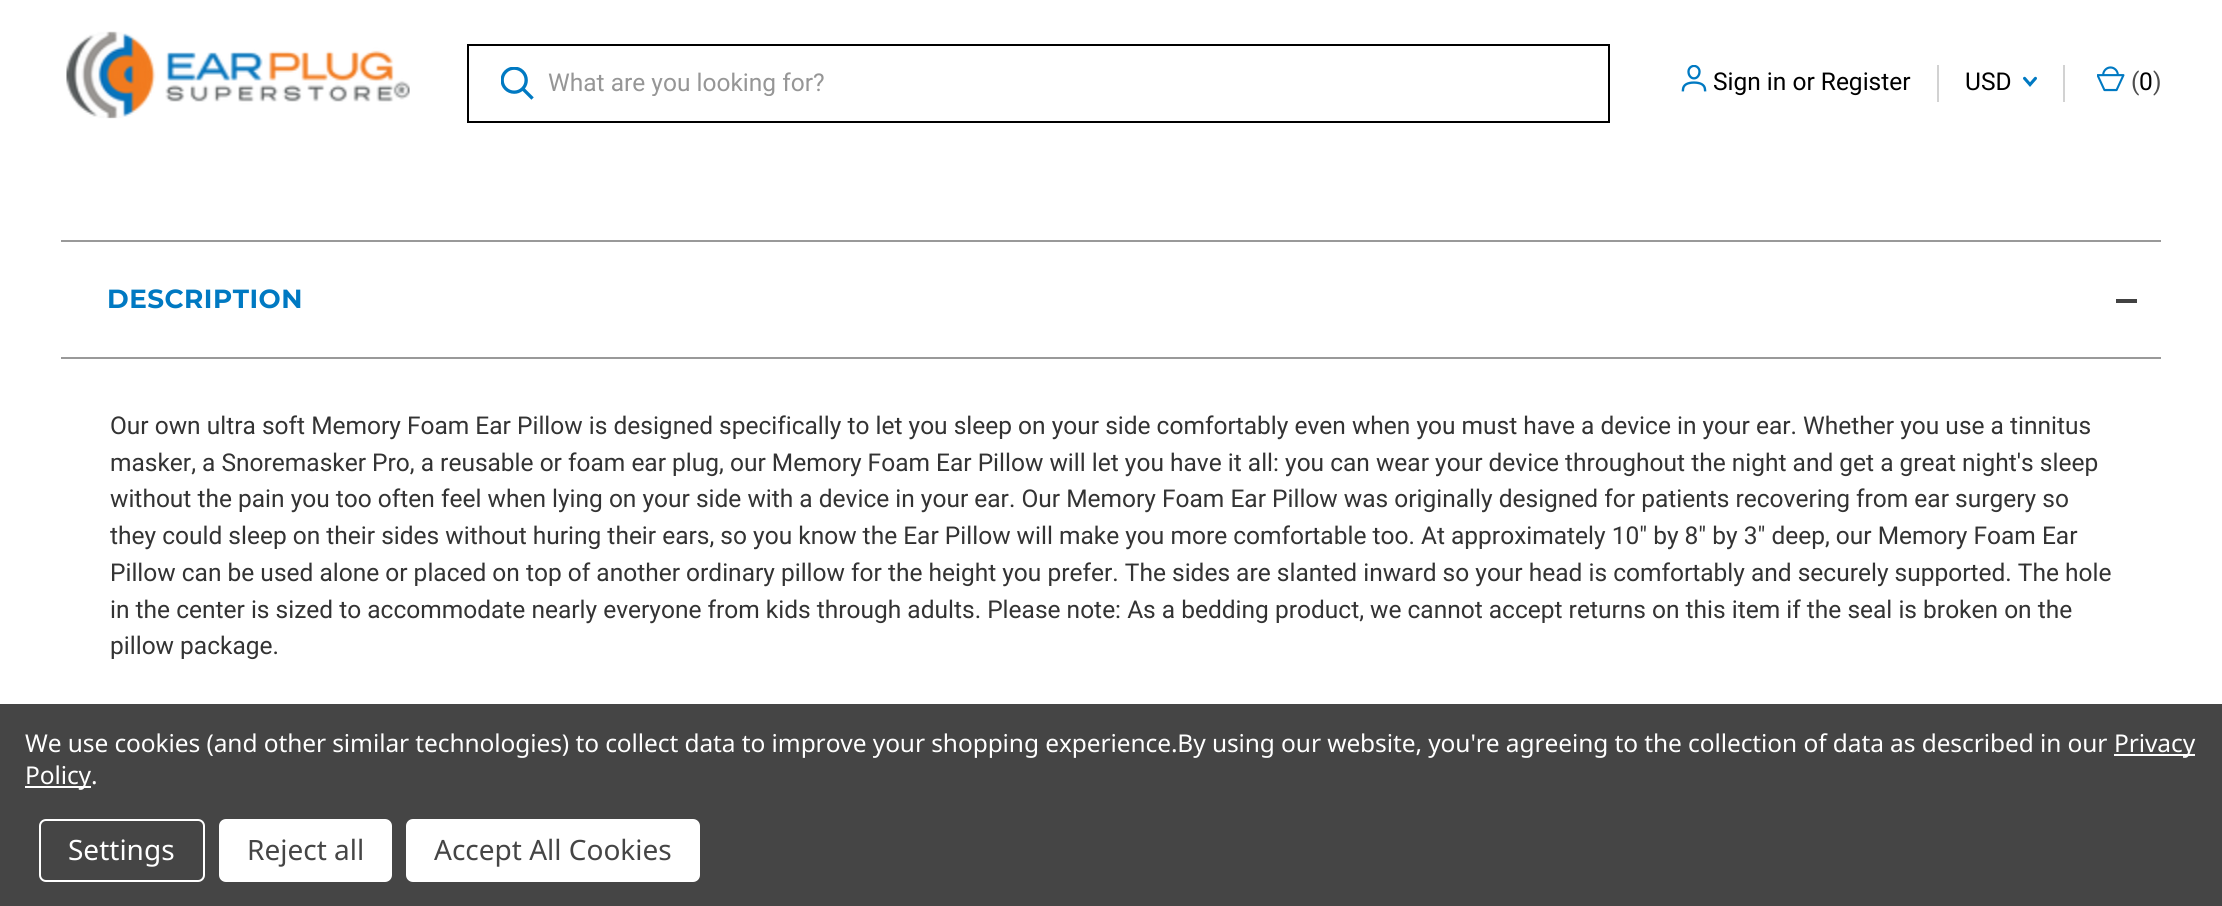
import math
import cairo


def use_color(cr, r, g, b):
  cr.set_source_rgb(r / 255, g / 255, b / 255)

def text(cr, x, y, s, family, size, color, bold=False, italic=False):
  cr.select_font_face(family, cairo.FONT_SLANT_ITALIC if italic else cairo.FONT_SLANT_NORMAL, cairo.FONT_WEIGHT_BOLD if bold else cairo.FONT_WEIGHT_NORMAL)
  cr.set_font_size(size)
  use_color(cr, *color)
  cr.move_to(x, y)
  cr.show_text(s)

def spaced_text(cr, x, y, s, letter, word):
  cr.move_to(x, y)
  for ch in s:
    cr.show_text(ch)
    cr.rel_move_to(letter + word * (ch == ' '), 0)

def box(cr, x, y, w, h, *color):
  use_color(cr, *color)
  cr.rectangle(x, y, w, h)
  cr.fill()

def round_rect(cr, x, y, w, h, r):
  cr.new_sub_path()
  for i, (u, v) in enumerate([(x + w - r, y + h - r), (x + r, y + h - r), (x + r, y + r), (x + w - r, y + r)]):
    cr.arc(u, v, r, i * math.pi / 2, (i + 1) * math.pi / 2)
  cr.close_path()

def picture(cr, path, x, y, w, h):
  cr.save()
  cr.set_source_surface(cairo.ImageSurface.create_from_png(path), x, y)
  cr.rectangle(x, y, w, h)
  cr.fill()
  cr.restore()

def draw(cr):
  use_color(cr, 255, 255, 255)
  cr.paint()
  picture(cr, "img_01.png", 66, 31, 344, 88)
  cr.rectangle(468, 45, 1141, 77)
  use_color(cr, 0, 0, 0)
  cr.stroke()
  picture(cr, "img_02.png", 501, 67, 33, 33)
  picture(cr, "img_03.png", 1681, 65, 26, 27)
  box(cr, 1937, 65, 2, 37, 210, 210, 210)
  picture(cr, "img_04.png", 2023, 76, 14, 11)
  box(cr, 2063, 65, 2, 37, 210, 210, 210)
  picture(cr, "img_05.png", 2097, 66, 28, 26)
  box(cr, 61, 240, 2100, 2, 153, 153, 153)
  box(cr, 61, 357, 2100, 2, 153, 153, 153)
  box(cr, 2116, 299, 21, 4, 66, 66, 66)
  box(cr, 0, 704, 2222, 202, 69, 69, 69)
  box(cr, 2114, 754, 81, 2, 255, 255, 255)
  box(cr, 25, 786, 66, 2, 255, 255, 255)
  round_rect(cr, 40, 820, 164, 61, 6)
  cr.stroke()
  round_rect(cr, 219, 819, 173, 63, 7)
  cr.fill()
  round_rect(cr, 406, 819, 294, 63, 7)
  cr.fill()
  cr.save()
  cr.rectangle(548, 68, 1036, 28)
  cr.clip()
  text(cr, 548, 91, "What are you looking for?", "Roboto", 24.5, (150, 150, 150))
  cr.restore()
  text(cr, 1713, 90, "Sign in or Register", "Roboto", 24.5, (0, 0, 0))
  text(cr, 1965, 90, "USD", "Roboto", 24.5, (0, 0, 0))
  text(cr, 2131, 90, "(", "Roboto", 24.5, (78, 78, 78))
  text(cr, 2139, 90, "0", "Roboto", 24.5, (0, 0, 0))
  text(cr, 2153, 90, ")", "Roboto", 24.5, (78, 78, 78))
  cr.select_font_face("Montserrat", cairo.FONT_SLANT_NORMAL, cairo.FONT_WEIGHT_BOLD)
  cr.set_font_size(26.25)
  use_color(cr, 0, 121, 194)
  spaced_text(cr, 107, 308, "DESCRIPTION", 0.5, 0)
  text(cr, 110, 434, "Our own ultra soft Memory Foam Ear Pillow is designed specifically to let you sleep on your side comfortably even when you must have a device in your ear. Whether you use a tinnitus", "Roboto", 24.5, (51, 51, 51))
  text(cr, 110, 471, "masker, a Snoremasker Pro, a reusable or foam ear plug, our Memory Foam Ear Pillow will let you have it all: you can wear your device throughout the night and get a great night's sleep", "Roboto", 24.5, (51, 51, 51))
  text(cr, 110, 507, "without the pain you too often feel when lying on your side with a device in your ear. Our Memory Foam Ear Pillow was originally designed for patients recovering from ear surgery so", "Roboto", 24.5, (51, 51, 51))
  text(cr, 110, 544, "they could sleep on their sides without huring their ears, so you know the Ear Pillow will make you more comfortable too. At approximately 10\" by 8\" by 3\" deep, our Memory Foam Ear", "Roboto", 24.5, (51, 51, 51))
  text(cr, 110, 581, "Pillow can be used alone or placed on top of another ordinary pillow for the height you prefer. The sides are slanted inward so your head is comfortably and securely supported. The hole", "Roboto", 24.5, (51, 51, 51))
  text(cr, 110, 618, "in the center is sized to accommodate nearly everyone from kids through adults. Please note: As a bedding product, we cannot accept returns on this item if the seal is broken on the", "Roboto", 24.5, (51, 51, 51))
  text(cr, 110, 654, "pillow package.", "Roboto", 24.5, (51, 51, 51))
  cr.select_font_face("Noto Sans")
  use_color(cr, 255, 255, 255)
  spaced_text(cr, 25, 752, "We use cookies (and other similar technologies) to collect data to improve your shopping experience.By using our website, you're agreeing to the collection of data as described in our", -0.09, 0)
  spaced_text(cr, 2114, 752, "Privacy", -0.09, 0)
  spaced_text(cr, 25, 784, "Policy.", -0.09, 0)
  text(cr, 68, 860, "Settings", "Noto Sans", 28, (255, 255, 255))
  text(cr, 247, 860, "Reject all", "Noto Sans", 28, (69, 69, 69))
  text(cr, 434, 860, "Accept All Cookies", "Noto Sans", 28, (69, 69, 69))


surface = cairo.ImageSurface(cairo.FORMAT_RGB24, 2222, 906)
cr = cairo.Context(surface)
options = cairo.FontOptions()
options.set_hint_metrics(cairo.HINT_METRICS_OFF)
options.set_hint_style(cairo.HINT_STYLE_NONE)
cr.set_font_options(options)
cr.set_miter_limit(4)
draw(cr)
surface.write_to_png("out.png")
